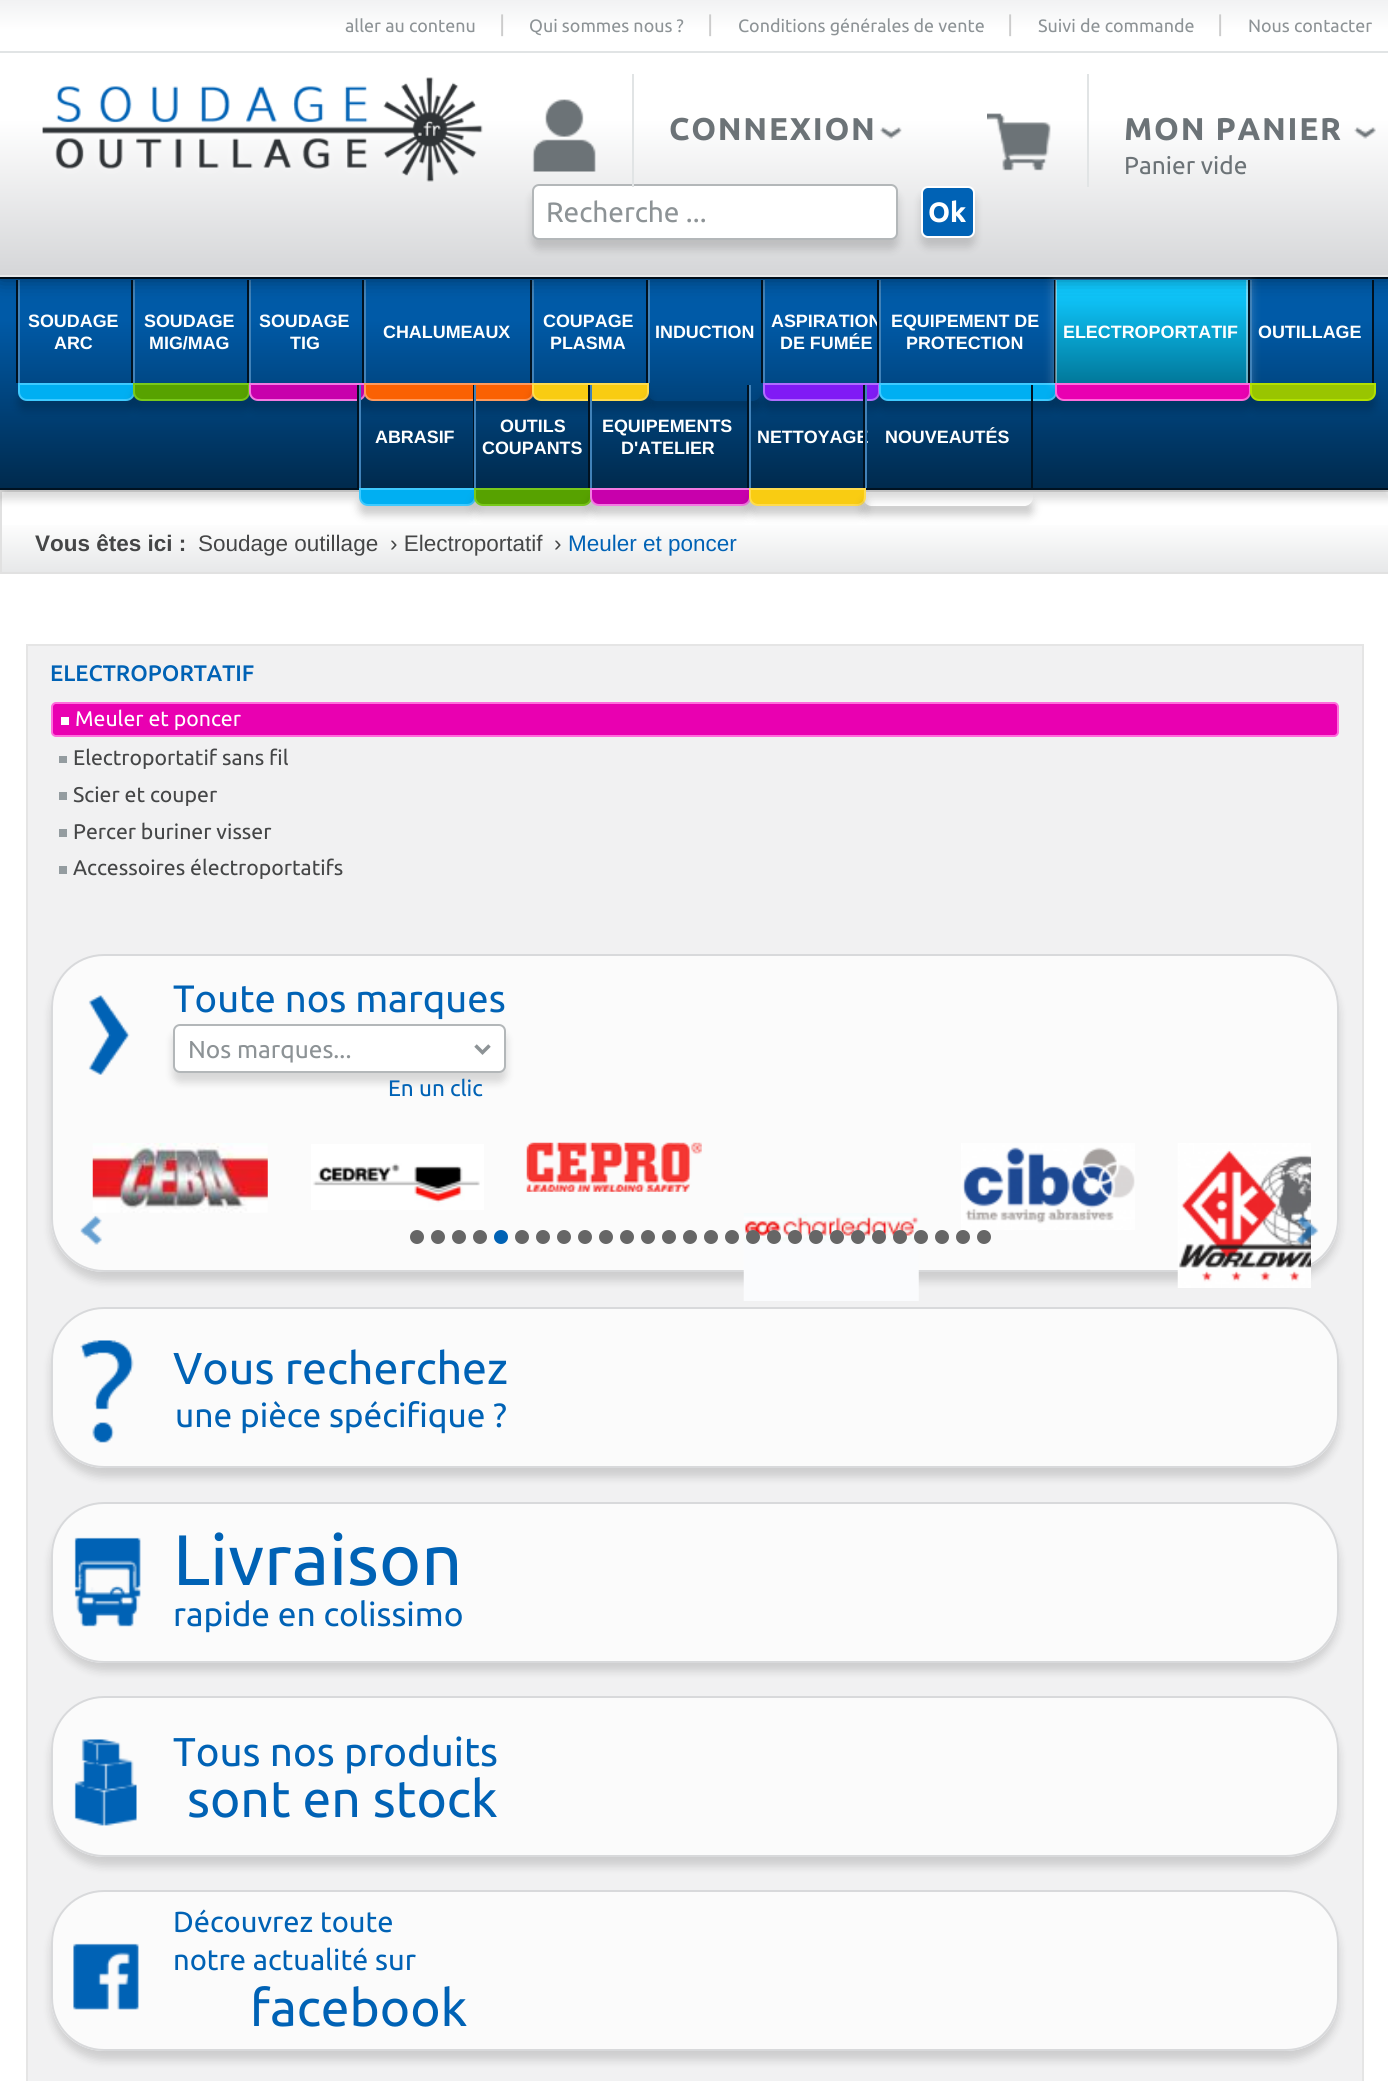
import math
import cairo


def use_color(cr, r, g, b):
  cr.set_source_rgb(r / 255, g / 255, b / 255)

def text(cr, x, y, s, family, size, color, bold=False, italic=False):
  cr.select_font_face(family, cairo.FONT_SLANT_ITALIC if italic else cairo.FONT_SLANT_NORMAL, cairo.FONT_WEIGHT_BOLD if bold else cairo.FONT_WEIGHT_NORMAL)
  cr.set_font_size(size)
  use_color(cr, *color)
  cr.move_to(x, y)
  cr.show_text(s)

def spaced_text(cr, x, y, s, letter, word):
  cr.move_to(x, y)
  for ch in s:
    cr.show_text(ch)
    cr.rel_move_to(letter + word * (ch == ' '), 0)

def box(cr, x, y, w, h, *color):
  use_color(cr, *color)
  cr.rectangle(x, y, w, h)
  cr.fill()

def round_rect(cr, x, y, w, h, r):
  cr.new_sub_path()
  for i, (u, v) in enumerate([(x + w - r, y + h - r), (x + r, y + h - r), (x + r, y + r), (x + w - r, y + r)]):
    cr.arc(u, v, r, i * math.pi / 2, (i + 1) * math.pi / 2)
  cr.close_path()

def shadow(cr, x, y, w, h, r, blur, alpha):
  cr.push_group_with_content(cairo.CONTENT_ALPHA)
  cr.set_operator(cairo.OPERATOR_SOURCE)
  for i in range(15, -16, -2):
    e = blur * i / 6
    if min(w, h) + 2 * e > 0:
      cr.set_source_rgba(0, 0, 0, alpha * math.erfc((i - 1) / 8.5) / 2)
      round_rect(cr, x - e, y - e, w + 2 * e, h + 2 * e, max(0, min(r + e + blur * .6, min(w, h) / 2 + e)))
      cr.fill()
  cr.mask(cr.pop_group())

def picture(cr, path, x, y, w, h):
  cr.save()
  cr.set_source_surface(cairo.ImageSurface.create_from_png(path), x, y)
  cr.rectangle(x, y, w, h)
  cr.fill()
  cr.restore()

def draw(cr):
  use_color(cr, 255, 255, 255)
  cr.paint()
  gradient = cairo.LinearGradient(695, 492, 695, 572)
  gradient.add_color_stop_rgba(0.35, 1, 1, 1, 1)
  gradient.add_color_stop_rgba(1, 0.906, 0.91, 0.914, 1)
  cr.set_source(gradient)
  cr.rectangle(2, 525, 1386, 47)
  cr.fill()
  cr.rectangle(1, 491, 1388, 82)
  use_color(cr, 225, 225, 225)
  cr.stroke()
  use_color(cr, 0, 0, 0)
  shadow(cr, 0, 285, 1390, 214, 0, 4.5, 0.15)
  gradient = cairo.LinearGradient(695, 278, 695, 488)
  gradient.add_color_stop_rgba(0.2, 0, 0.353, 0.655, 1)
  gradient.add_color_stop_rgba(1, 0, 0.165, 0.302, 1)
  cr.set_source(gradient)
  cr.rectangle(0, 279, 1388, 209)
  cr.fill()
  box(cr, 0, 277, 1388, 2, 0, 18, 33)
  box(cr, 0, 488, 1388, 2, 0, 18, 33)
  box(cr, 131, 280, 2, 103, 0, 18, 33)
  box(cr, 16, 280, 2, 103, 0, 18, 33)
  box(cr, 18, 280, 2, 103, 65, 130, 185)
  use_color(cr, 0, 0, 0)
  shadow(cr, 18, 392, 117, 18, 9, 4.5, 0.2)
  use_color(cr, 0, 175, 242)
  cr.new_path()
  cr.move_to(19, 384)
  cr.line_to(134, 384)
  cr.line_to(134, 392)
  cr.curve_to(134, 396.5, 130.5, 400, 126, 400)
  cr.line_to(27, 400)
  cr.curve_to(22.5, 400, 19, 396.5, 19, 392)
  cr.close_path()
  cr.fill_preserve()
  use_color(cr, 62, 202, 255)
  cr.stroke()
  box(cr, 247, 280, 2, 103, 0, 18, 33)
  box(cr, 133, 280, 2, 103, 65, 130, 185)
  use_color(cr, 0, 0, 0)
  shadow(cr, 133, 392, 117, 18, 9, 4.5, 0.2)
  use_color(cr, 87, 162, 0)
  cr.new_path()
  cr.move_to(134, 384)
  cr.line_to(249, 384)
  cr.line_to(249, 392)
  cr.curve_to(249, 396.5, 245.5, 400, 241, 400)
  cr.line_to(142, 400)
  cr.curve_to(137.5, 400, 134, 396.5, 134, 392)
  cr.close_path()
  cr.fill_preserve()
  use_color(cr, 120, 201, 26)
  cr.stroke()
  box(cr, 362, 280, 2, 103, 0, 18, 33)
  box(cr, 249, 280, 2, 103, 65, 130, 185)
  use_color(cr, 0, 0, 0)
  shadow(cr, 249, 392, 117, 18, 9, 4.5, 0.2)
  use_color(cr, 200, 0, 172)
  cr.new_path()
  cr.move_to(250, 384)
  cr.line_to(365, 384)
  cr.line_to(365, 392)
  cr.curve_to(365, 396.5, 361.5, 400, 357, 400)
  cr.line_to(258, 400)
  cr.curve_to(253.5, 400, 250, 396.5, 250, 392)
  cr.close_path()
  cr.fill_preserve()
  use_color(cr, 243, 121, 226)
  cr.stroke()
  box(cr, 530, 280, 2, 103, 0, 18, 33)
  box(cr, 364, 280, 2, 103, 65, 130, 185)
  use_color(cr, 0, 0, 0)
  shadow(cr, 364, 392, 170, 18, 9, 4.5, 0.2)
  use_color(cr, 250, 97, 3)
  cr.new_path()
  cr.move_to(365, 384)
  cr.line_to(533, 384)
  cr.line_to(533, 392)
  cr.curve_to(533, 396.5, 529.5, 400, 525, 400)
  cr.line_to(373, 400)
  cr.curve_to(368.5, 400, 365, 396.5, 365, 392)
  cr.close_path()
  cr.fill_preserve()
  use_color(cr, 255, 154, 92)
  cr.stroke()
  box(cr, 646, 280, 2, 103, 0, 18, 33)
  box(cr, 532, 280, 2, 103, 65, 130, 185)
  use_color(cr, 0, 0, 0)
  shadow(cr, 532, 392, 117, 18, 9, 4.5, 0.2)
  use_color(cr, 249, 204, 18)
  cr.new_path()
  cr.move_to(533, 384)
  cr.line_to(648, 384)
  cr.line_to(648, 392)
  cr.curve_to(648, 396.5, 644.5, 400, 640, 400)
  cr.line_to(541, 400)
  cr.curve_to(536.5, 400, 533, 396.5, 533, 392)
  cr.close_path()
  cr.fill_preserve()
  use_color(cr, 255, 220, 78)
  cr.stroke()
  box(cr, 761, 280, 2, 103, 0, 18, 33)
  box(cr, 648, 280, 2, 103, 65, 130, 185)
  cr.save()
  cr.set_fill_rule(cairo.FILL_RULE_EVEN_ODD)
  cr.new_path()
  cr.move_to(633, 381)
  cr.line_to(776, 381)
  cr.line_to(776, 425)
  cr.line_to(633, 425)
  cr.close_path()
  cr.move_to(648, 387)
  cr.line_to(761, 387)
  cr.line_to(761, 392)
  cr.curve_to(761, 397, 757, 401, 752, 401)
  cr.line_to(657, 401)
  cr.curve_to(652, 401, 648, 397, 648, 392)
  cr.close_path()
  cr.clip()
  use_color(cr, 0, 0, 0)
  shadow(cr, 648, 396, 113, 14, 9, 4.5, 0.2)
  cr.restore()
  box(cr, 763, 280, 2, 103, 65, 130, 185)
  use_color(cr, 0, 0, 0)
  shadow(cr, 763, 392, 117, 18, 9, 4.5, 0.2)
  use_color(cr, 128, 26, 245)
  cr.new_path()
  cr.move_to(764, 384)
  cr.line_to(879, 384)
  cr.line_to(879, 392)
  cr.curve_to(879, 396.5, 875.5, 400, 871, 400)
  cr.line_to(772, 400)
  cr.curve_to(767.5, 400, 764, 396.5, 764, 392)
  cr.close_path()
  cr.fill_preserve()
  use_color(cr, 176, 108, 255)
  cr.stroke()
  box(cr, 1372, 280, 2, 103, 0, 18, 33)
  box(cr, 473, 385, 1, 103, 0, 18, 33)
  box(cr, 357, 385, 2, 103, 0, 18, 33)
  box(cr, 359, 385, 2, 103, 65, 130, 185)
  use_color(cr, 0, 0, 0)
  shadow(cr, 359, 497, 117, 18, 9, 4.5, 0.2)
  use_color(cr, 0, 175, 242)
  cr.new_path()
  cr.move_to(360, 489)
  cr.line_to(475, 489)
  cr.line_to(475, 497)
  cr.curve_to(475, 501.5, 471.5, 505, 467, 505)
  cr.line_to(368, 505)
  cr.curve_to(363.5, 505, 360, 501.5, 360, 497)
  cr.close_path()
  cr.fill_preserve()
  use_color(cr, 62, 202, 255)
  cr.stroke()
  box(cr, 588, 385, 2, 103, 0, 18, 33)
  box(cr, 474, 385, 2, 103, 65, 130, 185)
  use_color(cr, 0, 0, 0)
  shadow(cr, 474, 497, 118, 18, 9, 4.5, 0.2)
  use_color(cr, 87, 162, 0)
  cr.new_path()
  cr.move_to(475, 489)
  cr.line_to(591, 489)
  cr.line_to(591, 497)
  cr.curve_to(591, 501.5, 587.5, 505, 583, 505)
  cr.line_to(483, 505)
  cr.curve_to(478.5, 505, 475, 501.5, 475, 497)
  cr.close_path()
  cr.fill_preserve()
  use_color(cr, 120, 201, 26)
  cr.stroke()
  box(cr, 747, 385, 2, 103, 0, 18, 33)
  box(cr, 590, 385, 2, 103, 65, 130, 185)
  box(cr, 749, 385, 2, 103, 65, 130, 185)
  use_color(cr, 0, 0, 0)
  shadow(cr, 590, 497, 161, 18, 9, 4.5, 0.2)
  use_color(cr, 200, 0, 172)
  cr.new_path()
  cr.move_to(591, 489)
  cr.line_to(750, 489)
  cr.line_to(750, 497)
  cr.curve_to(750, 501.5, 746.5, 505, 742, 505)
  cr.line_to(599, 505)
  cr.curve_to(594.5, 505, 591, 501.5, 591, 497)
  cr.close_path()
  cr.fill_preserve()
  use_color(cr, 243, 121, 226)
  cr.stroke()
  use_color(cr, 0, 0, 0)
  shadow(cr, 749, 497, 117, 18, 9, 4.5, 0.2)
  use_color(cr, 249, 204, 18)
  cr.new_path()
  cr.move_to(750, 489)
  cr.line_to(865, 489)
  cr.line_to(865, 497)
  cr.curve_to(865, 501.5, 861.5, 505, 857, 505)
  cr.line_to(758, 505)
  cr.curve_to(753.5, 505, 750, 501.5, 750, 497)
  cr.close_path()
  cr.fill_preserve()
  use_color(cr, 255, 220, 78)
  cr.stroke()
  box(cr, 28, 646, 1334, 1435, 241, 241, 242)
  box(cr, 26, 644, 1337, 2, 229, 229, 229)
  box(cr, 1362, 644, 2, 1437, 229, 229, 229)
  box(cr, 26, 644, 2, 1437, 229, 229, 229)
  use_color(cr, 233, 0, 177)
  round_rect(cr, 52, 703, 1286, 33, 4)
  cr.fill_preserve()
  use_color(cr, 255, 108, 220)
  cr.stroke()
  box(cr, 61, 717, 8, 8, 255, 255, 255)
  box(cr, 59, 756, 8, 7, 148, 156, 160)
  box(cr, 59, 792, 8, 8, 148, 156, 160)
  box(cr, 59, 829, 8, 8, 148, 156, 160)
  box(cr, 59, 866, 8, 8, 148, 156, 160)
  cr.save()
  cr.set_fill_rule(cairo.FILL_RULE_EVEN_ODD)
  cr.new_path()
  cr.move_to(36, 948)
  cr.line_to(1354, 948)
  cr.line_to(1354, 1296)
  cr.line_to(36, 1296)
  cr.close_path()
  cr.move_to(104, 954)
  cr.line_to(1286, 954)
  cr.curve_to(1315.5, 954, 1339, 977.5, 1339, 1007)
  cr.line_to(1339, 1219)
  cr.curve_to(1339, 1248.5, 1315.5, 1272, 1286, 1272)
  cr.line_to(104, 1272)
  cr.curve_to(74.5, 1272, 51, 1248.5, 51, 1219)
  cr.line_to(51, 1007)
  cr.curve_to(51, 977.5, 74.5, 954, 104, 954)
  cr.close_path()
  cr.clip()
  use_color(cr, 0, 0, 0)
  shadow(cr, 51, 963, 1288, 318, 53, 4.5, 0.15)
  cr.restore()
  cr.set_source_rgba(1, 1, 1, 0.7)
  round_rect(cr, 52, 955, 1286, 316, 52)
  cr.fill_preserve()
  use_color(cr, 216, 217, 219)
  cr.stroke()
  picture(cr, "img_06.png", 88, 995, 42, 80)
  use_color(cr, 0, 0, 0)
  shadow(cr, 173, 1033, 333, 49, 7, 4.5, 0.15)
  use_color(cr, 255, 255, 255)
  round_rect(cr, 174, 1025, 331, 47, 6)
  cr.fill_preserve()
  use_color(cr, 179, 183, 185)
  cr.stroke()
  cr.new_path()
  cr.move_to(475.5, 1045.5)
  cr.line_to(482.5, 1052.5)
  cr.line_to(489.5, 1045.5)
  use_color(cr, 141, 147, 150)
  cr.set_line_width(3.5)
  cr.stroke()
  picture(cr, "img_07.png", 92, 1143, 176, 70)
  picture(cr, "img_08.png", 311, 1144, 173, 66)
  picture(cr, "img_09.png", 526, 1142, 176, 50)
  picture(cr, "img_10.png", 961, 1143, 174, 87)
  picture(cr, "img_11.png", 1177, 1143, 134, 145)
  picture(cr, "img_12.png", 743, 1213, 176, 88)
  picture(cr, "img_13.png", 80, 1215, 22, 30)
  picture(cr, "img_14.png", 1296, 1216, 23, 29)
  use_color(cr, 102, 102, 102)
  cr.arc(417, 1237, 7, 0, 2 * math.pi)
  cr.fill()
  cr.arc(438, 1237, 7, 0, 2 * math.pi)
  cr.fill()
  cr.arc(459, 1237, 7, 0, 2 * math.pi)
  cr.fill()
  cr.arc(480, 1237, 7, 0, 2 * math.pi)
  cr.fill()
  use_color(cr, 0, 98, 181)
  cr.arc(501, 1237, 7, 0, 2 * math.pi)
  cr.fill()
  use_color(cr, 102, 102, 102)
  cr.arc(522, 1237, 7, 0, 2 * math.pi)
  cr.fill()
  cr.arc(543, 1237, 7, 0, 2 * math.pi)
  cr.fill()
  cr.arc(564, 1237, 7, 0, 2 * math.pi)
  cr.fill()
  cr.arc(585, 1237, 7, 0, 2 * math.pi)
  cr.fill()
  cr.arc(606, 1237, 7, 0, 2 * math.pi)
  cr.fill()
  cr.arc(627, 1237, 7, 0, 2 * math.pi)
  cr.fill()
  cr.arc(648, 1237, 7, 0, 2 * math.pi)
  cr.fill()
  cr.arc(669, 1237, 7, 0, 2 * math.pi)
  cr.fill()
  cr.arc(690, 1237, 7, 0, 2 * math.pi)
  cr.fill()
  cr.arc(711, 1237, 7, 0, 2 * math.pi)
  cr.fill()
  cr.arc(732, 1237, 7, 0, 2 * math.pi)
  cr.fill()
  cr.arc(753, 1237, 7, 0, 2 * math.pi)
  cr.fill()
  cr.arc(774, 1237, 7, 0, 2 * math.pi)
  cr.fill()
  cr.arc(795, 1237, 7, 0, 2 * math.pi)
  cr.fill()
  cr.arc(816, 1237, 7, 0, 2 * math.pi)
  cr.fill()
  cr.arc(837, 1237, 7, 0, 2 * math.pi)
  cr.fill()
  cr.arc(858, 1237, 7, 0, 2 * math.pi)
  cr.fill()
  cr.arc(879, 1237, 7, 0, 2 * math.pi)
  cr.fill()
  cr.arc(900, 1237, 7, 0, 2 * math.pi)
  cr.fill()
  cr.arc(921, 1237, 7, 0, 2 * math.pi)
  cr.fill()
  cr.arc(942, 1237, 7, 0, 2 * math.pi)
  cr.fill()
  cr.arc(963, 1237, 7, 0, 2 * math.pi)
  cr.fill()
  cr.arc(984, 1237, 7, 0, 2 * math.pi)
  cr.fill()
  cr.save()
  cr.set_fill_rule(cairo.FILL_RULE_EVEN_ODD)
  cr.new_path()
  cr.move_to(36, 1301)
  cr.line_to(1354, 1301)
  cr.line_to(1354, 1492)
  cr.line_to(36, 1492)
  cr.close_path()
  cr.move_to(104, 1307)
  cr.line_to(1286, 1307)
  cr.curve_to(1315.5, 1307, 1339, 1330.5, 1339, 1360)
  cr.line_to(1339, 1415)
  cr.curve_to(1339, 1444.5, 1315.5, 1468, 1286, 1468)
  cr.line_to(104, 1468)
  cr.curve_to(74.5, 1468, 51, 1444.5, 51, 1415)
  cr.line_to(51, 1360)
  cr.curve_to(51, 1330.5, 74.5, 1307, 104, 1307)
  cr.close_path()
  cr.clip()
  use_color(cr, 0, 0, 0)
  shadow(cr, 51, 1316, 1288, 161, 53, 4.5, 0.15)
  cr.restore()
  cr.set_source_rgba(1, 1, 1, 0.7)
  round_rect(cr, 52, 1308, 1286, 159, 52)
  cr.fill_preserve()
  use_color(cr, 216, 217, 219)
  cr.set_line_width(2)
  cr.stroke()
  picture(cr, "img_15.png", 80, 1340, 54, 103)
  cr.save()
  cr.set_fill_rule(cairo.FILL_RULE_EVEN_ODD)
  cr.new_path()
  cr.move_to(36, 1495)
  cr.line_to(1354, 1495)
  cr.line_to(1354, 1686)
  cr.line_to(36, 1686)
  cr.close_path()
  cr.move_to(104, 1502)
  cr.line_to(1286, 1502)
  cr.curve_to(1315.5, 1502, 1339, 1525.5, 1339, 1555)
  cr.line_to(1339, 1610)
  cr.curve_to(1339, 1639.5, 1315.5, 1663, 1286, 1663)
  cr.line_to(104, 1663)
  cr.curve_to(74.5, 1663, 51, 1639.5, 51, 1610)
  cr.line_to(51, 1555)
  cr.curve_to(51, 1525.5, 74.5, 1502, 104, 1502)
  cr.close_path()
  cr.clip()
  use_color(cr, 0, 0, 0)
  shadow(cr, 51, 1510, 1288, 161, 53, 4.5, 0.15)
  cr.restore()
  cr.set_source_rgba(1, 1, 1, 0.7)
  round_rect(cr, 52, 1503, 1286, 159, 52)
  cr.fill_preserve()
  use_color(cr, 216, 217, 219)
  cr.stroke()
  picture(cr, "img_16.png", 74, 1537, 67, 90)
  cr.save()
  cr.set_fill_rule(cairo.FILL_RULE_EVEN_ODD)
  cr.new_path()
  cr.move_to(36, 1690)
  cr.line_to(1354, 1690)
  cr.line_to(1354, 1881)
  cr.line_to(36, 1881)
  cr.close_path()
  cr.move_to(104, 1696)
  cr.line_to(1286, 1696)
  cr.curve_to(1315.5, 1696, 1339, 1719.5, 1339, 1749)
  cr.line_to(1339, 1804)
  cr.curve_to(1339, 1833.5, 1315.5, 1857, 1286, 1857)
  cr.line_to(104, 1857)
  cr.curve_to(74.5, 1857, 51, 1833.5, 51, 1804)
  cr.line_to(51, 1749)
  cr.curve_to(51, 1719.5, 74.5, 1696, 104, 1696)
  cr.close_path()
  cr.clip()
  use_color(cr, 0, 0, 0)
  shadow(cr, 51, 1705, 1288, 161, 53, 4.5, 0.15)
  cr.restore()
  cr.set_source_rgba(1, 1, 1, 0.7)
  round_rect(cr, 52, 1697, 1286, 159, 52)
  cr.fill_preserve()
  use_color(cr, 216, 217, 219)
  cr.stroke()
  picture(cr, "img_17.png", 74, 1739, 63, 87)
  cr.save()
  cr.set_fill_rule(cairo.FILL_RULE_EVEN_ODD)
  cr.new_path()
  cr.move_to(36, 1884)
  cr.line_to(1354, 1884)
  cr.line_to(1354, 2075)
  cr.line_to(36, 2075)
  cr.close_path()
  cr.move_to(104, 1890)
  cr.line_to(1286, 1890)
  cr.curve_to(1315.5, 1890, 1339, 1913.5, 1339, 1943)
  cr.line_to(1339, 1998)
  cr.curve_to(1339, 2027.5, 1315.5, 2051, 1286, 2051)
  cr.line_to(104, 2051)
  cr.curve_to(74.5, 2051, 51, 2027.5, 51, 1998)
  cr.line_to(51, 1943)
  cr.curve_to(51, 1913.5, 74.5, 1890, 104, 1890)
  cr.close_path()
  cr.clip()
  use_color(cr, 0, 0, 0)
  shadow(cr, 51, 1899, 1288, 161, 53, 4.5, 0.15)
  cr.restore()
  cr.set_source_rgba(1, 1, 1, 0.7)
  round_rect(cr, 52, 1891, 1286, 159, 52)
  cr.fill_preserve()
  use_color(cr, 216, 217, 219)
  cr.stroke()
  picture(cr, "img_18.png", 73, 1943, 66, 67)
  text(cr, 28, 327, "SOUDAGE", "Liberation Sans", 17.9, (255, 255, 255), bold=True)
  text(cr, 54, 349, "ARC", "Liberation Sans", 17.9, (255, 255, 255), bold=True)
  text(cr, 144, 327, "SOUDAGE", "Liberation Sans", 17.9, (255, 255, 255), bold=True)
  text(cr, 149, 349, "MIG/MAG", "Liberation Sans", 17.9, (255, 255, 255), bold=True)
  text(cr, 259, 327, "SOUDAGE", "Liberation Sans", 17.9, (255, 255, 255), bold=True)
  text(cr, 290, 349, "TIG", "Liberation Sans", 17.9, (255, 255, 255), bold=True)
  text(cr, 383, 338, "CHALUMEAUX", "Liberation Sans", 17.9, (255, 255, 255), bold=True)
  text(cr, 543, 327, "COUPAGE", "Liberation Sans", 17.9, (255, 255, 255), bold=True)
  text(cr, 550, 349, "PLASMA", "Liberation Sans", 17.9, (255, 255, 255), bold=True)
  text(cr, 655, 338, "INDUCTION", "Liberation Sans", 17.9, (255, 255, 255), bold=True)
  text(cr, 771, 327, "ASPIRATION", "Liberation Sans", 17.9, (255, 255, 255), bold=True)
  text(cr, 780, 349, "DE FUMÉE", "Liberation Sans", 17.9, (255, 255, 255), bold=True)
  box(cr, 877, 280, 2, 103, 0, 18, 33)
  box(cr, 879, 280, 2, 103, 65, 130, 185)
  text(cr, 891, 327, "EQUIPEMENT DE", "Liberation Sans", 17.9, (255, 255, 255), bold=True)
  text(cr, 906, 349, "PROTECTION", "Liberation Sans", 17.9, (255, 255, 255), bold=True)
  use_color(cr, 0, 0, 0)
  shadow(cr, 879, 392, 178, 18, 9, 4.5, 0.2)
  use_color(cr, 0, 175, 242)
  cr.new_path()
  cr.move_to(880, 384)
  cr.line_to(1056, 384)
  cr.line_to(1056, 392)
  cr.curve_to(1056, 396.5, 1052.5, 400, 1048, 400)
  cr.line_to(888, 400)
  cr.curve_to(883.5, 400, 880, 396.5, 880, 392)
  cr.close_path()
  cr.fill_preserve()
  use_color(cr, 62, 202, 255)
  cr.stroke()
  use_color(cr, 255, 255, 255)
  shadow(cr, 1054, 280, 196, 103, 0, 5, 0.3)
  gradient = cairo.LinearGradient(1152, 280, 1152, 383)
  gradient.add_color_stop_rgba(0.1, 0.059, 0.788, 1, 1)
  gradient.add_color_stop_rgba(1, 0.004, 0.471, 0.604, 1)
  cr.set_source(gradient)
  cr.rectangle(1056, 280, 192, 103)
  cr.fill()
  box(cr, 1248, 280, 2, 103, 0, 18, 33)
  box(cr, 1054, 280, 2, 103, 0, 18, 33)
  cr.set_source_rgba(1, 1, 1, 0.4)
  cr.rectangle(1055, 280, 2, 103)
  cr.fill()
  text(cr, 1063, 338, "ELECTROPORTATIF", "Liberation Sans", 17.9, (255, 255, 255), bold=True)
  cr.set_source_rgba(1, 1, 1, 0.4)
  cr.rectangle(1246, 280, 2, 103)
  cr.fill()
  use_color(cr, 0, 0, 0)
  shadow(cr, 1055, 392, 196, 18, 9, 4.5, 0.2)
  use_color(cr, 233, 0, 177)
  cr.new_path()
  cr.move_to(1056, 384)
  cr.line_to(1250, 384)
  cr.line_to(1250, 392)
  cr.curve_to(1250, 396.5, 1246.5, 400, 1242, 400)
  cr.line_to(1064, 400)
  cr.curve_to(1059.5, 400, 1056, 396.5, 1056, 392)
  cr.close_path()
  cr.fill_preserve()
  use_color(cr, 255, 108, 220)
  cr.stroke()
  box(cr, 1250, 280, 2, 103, 65, 130, 185)
  use_color(cr, 0, 0, 0)
  shadow(cr, 0, 53, 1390, 224, 0, 10.5, 0.5)
  gradient = cairo.LinearGradient(695, 0, 695, 51)
  gradient.add_color_stop_rgba(0, 0.945, 0.949, 0.953, 1)
  gradient.add_color_stop_rgba(0.6, 1, 1, 1, 1)
  cr.set_source(gradient)
  cr.rectangle(0, 0, 1388, 51)
  cr.fill()
  text(cr, 499, 32, "|", "Ubuntu", 22.5, (204, 204, 204))
  text(cr, 345, 32, "aller au contenu", "Ubuntu", 17.9, (141, 147, 150))
  text(cr, 1248, 32, "Nous contacter", "Ubuntu", 17.9, (141, 147, 150))
  text(cr, 1217, 32, "|", "Ubuntu", 22.5, (204, 204, 204))
  text(cr, 1038, 32, "Suivi de commande", "Ubuntu", 17.9, (141, 147, 150))
  text(cr, 1007, 32, "|", "Ubuntu", 22.5, (204, 204, 204))
  text(cr, 738, 32, "Conditions générales de vente", "Ubuntu", 17.9, (141, 147, 150))
  text(cr, 707, 32, "|", "Ubuntu", 22.5, (204, 204, 204))
  text(cr, 529, 32, "Qui sommes nous ?", "Ubuntu", 17.9, (141, 147, 150))
  box(cr, 0, 51, 1388, 2, 225, 228, 229)
  gradient = cairo.LinearGradient(695, 52, 695, 275)
  gradient.add_color_stop_rgba(0.3, 1, 1, 1, 1)
  gradient.add_color_stop_rgba(1, 0.835, 0.839, 0.847, 1)
  cr.set_source(gradient)
  cr.rectangle(0, 53, 1388, 222)
  cr.fill()
  picture(cr, "img_05.png", 1354, 127, 22, 12)
  picture(cr, "img_04.png", 987, 113, 64, 58)
  text(cr, 1124, 174, "Panier vide", "Ubuntu", 24.5, (108, 115, 119))
  cr.select_font_face("Ubuntu", cairo.FONT_SLANT_NORMAL, cairo.FONT_WEIGHT_BOLD)
  cr.set_font_size(31.5)
  spaced_text(cr, 1124, 140, "MON PANIER", 1.75, 0)
  box(cr, 1087, 74, 2, 113, 225, 228, 229)
  picture(cr, "img_03.png", 880, 127, 22, 12)
  picture(cr, "img_02.png", 532, 99, 64, 73)
  use_color(cr, 108, 115, 119)
  spaced_text(cr, 669, 140, "CONNEXION", 1.75, 0)
  use_color(cr, 0, 0, 0)
  shadow(cr, 532, 193, 366, 56, 7, 4.5, 0.15)
  use_color(cr, 255, 255, 255)
  round_rect(cr, 533, 185, 364, 54, 6)
  cr.fill_preserve()
  use_color(cr, 179, 183, 185)
  cr.stroke()
  box(cr, 632, 74, 2, 113, 225, 228, 229)
  use_color(cr, 0, 0, 0)
  shadow(cr, 921, 194, 54, 53, 7, 4.5, 0.15)
  use_color(cr, 0, 98, 181)
  round_rect(cr, 922, 187, 52, 50, 6)
  cr.fill_preserve()
  use_color(cr, 255, 255, 255)
  cr.stroke()
  text(cr, 928, 222, "Ok", "Ubuntu", 28, (255, 255, 255), bold=True)
  text(cr, 546, 222, "Recherche ...", "Ubuntu", 28, (141, 147, 150))
  picture(cr, "img_01.png", 42, 77, 441, 105)
  box(cr, 0, 275, 1388, 2, 232, 233, 234)
  text(cr, 1258, 338, "OUTILLAGE", "Liberation Sans", 17.9, (255, 255, 255), bold=True)
  use_color(cr, 0, 0, 0)
  shadow(cr, 1250, 392, 126, 18, 9, 4.5, 0.2)
  use_color(cr, 153, 197, 0)
  cr.new_path()
  cr.move_to(1251, 384)
  cr.line_to(1375, 384)
  cr.line_to(1375, 392)
  cr.curve_to(1375, 396.5, 1371.5, 400, 1367, 400)
  cr.line_to(1259, 400)
  cr.curve_to(1254.5, 400, 1251, 396.5, 1251, 392)
  cr.close_path()
  cr.fill_preserve()
  use_color(cr, 179, 224, 0)
  cr.stroke()
  text(cr, 375, 443, "ABRASIF", "Liberation Sans", 17.9, (255, 255, 255), bold=True)
  text(cr, 500, 432, "OUTILS", "Liberation Sans", 17.9, (255, 255, 255), bold=True)
  text(cr, 482, 454, "COUPANTS", "Liberation Sans", 17.9, (255, 255, 255), bold=True)
  text(cr, 602, 432, "EQUIPEMENTS", "Liberation Sans", 17.9, (255, 255, 255), bold=True)
  text(cr, 621, 454, "D'ATELIER", "Liberation Sans", 17.9, (255, 255, 255), bold=True)
  text(cr, 757, 443, "NETTOYAGE", "Liberation Sans", 17.9, (255, 255, 255), bold=True)
  box(cr, 1031, 385, 2, 103, 0, 18, 33)
  box(cr, 863, 385, 2, 103, 0, 18, 33)
  box(cr, 865, 385, 2, 103, 65, 130, 185)
  text(cr, 885, 443, "NOUVEAUTÉS", "Liberation Sans", 17.9, (255, 255, 255), bold=True)
  cr.save()
  cr.set_fill_rule(cairo.FILL_RULE_EVEN_ODD)
  cr.new_path()
  cr.move_to(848, 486)
  cr.line_to(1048, 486)
  cr.line_to(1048, 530)
  cr.line_to(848, 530)
  cr.close_path()
  cr.move_to(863, 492)
  cr.line_to(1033, 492)
  cr.line_to(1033, 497)
  cr.curve_to(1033, 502, 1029, 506, 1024, 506)
  cr.line_to(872, 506)
  cr.curve_to(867, 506, 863, 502, 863, 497)
  cr.close_path()
  cr.clip()
  use_color(cr, 0, 0, 0)
  shadow(cr, 863, 501, 170, 14, 9, 4.5, 0.2)
  cr.restore()
  text(cr, 35, 551, "Vous êtes ici :", "Liberation Sans", 22.5, (69, 70, 71), bold=True)
  text(cr, 198, 551, "Soudage outillage", "Liberation Sans", 22.5, (69, 70, 71))
  text(cr, 390, 551, "› Electroportatif", "Liberation Sans", 22.5, (69, 70, 71))
  text(cr, 554, 551, "›", "Liberation Sans", 22.5, (69, 70, 71))
  text(cr, 568, 551, "Meuler et poncer", "Liberation Sans", 22.5, (0, 98, 181))
  text(cr, 50, 681, "ELECTROPORTATIF", "Ubuntu Medium", 22.5, (0, 98, 181))
  text(cr, 75, 726, "Meuler et poncer", "Ubuntu", 21.25, (255, 255, 255))
  text(cr, 73, 765, "Electroportatif sans fil", "Ubuntu", 21.25, (69, 70, 71))
  text(cr, 73, 802, "Scier et couper", "Ubuntu", 21.25, (69, 70, 71))
  text(cr, 73, 839, "Percer buriner visser", "Ubuntu", 21.25, (69, 70, 71))
  text(cr, 73, 875, "Accessoires électroportatifs", "Ubuntu", 21.25, (69, 70, 71))
  text(cr, 173, 1012, "Toute nos marques", "Ubuntu", 38.25, (0, 98, 181))
  text(cr, 188, 1058, "Nos marques...", "Ubuntu", 24.5, (141, 147, 150))
  text(cr, 388, 1096, "En un clic", "Ubuntu", 22.5, (0, 98, 181))
  text(cr, 173, 1384, "Vous recherchez", "Ubuntu", 44.75, (0, 98, 181))
  text(cr, 175, 1427, "une pièce spécifique ?", "Ubuntu", 33.5, (0, 98, 181))
  text(cr, 173, 1585, "Livraison", "Ubuntu", 71.5, (0, 98, 181))
  text(cr, 173, 1626, "rapide en colissimo", "Ubuntu", 33.5, (0, 98, 181))
  text(cr, 173, 1766, "Tous nos produits", "Ubuntu", 40.25, (0, 98, 181))
  text(cr, 187, 1817, "sont en stock", "Ubuntu", 51.5, (0, 98, 181))
  text(cr, 173, 1932, "Découvrez toute", "Ubuntu", 29.1, (0, 98, 181))
  text(cr, 173, 1970, "notre actualité sur", "Ubuntu", 29.1, (0, 98, 181))
  text(cr, 250, 2026, "facebook", "Ubuntu", 51.5, (0, 98, 181))


surface = cairo.ImageSurface(cairo.FORMAT_RGB24, 1388, 2081)
cr = cairo.Context(surface)
options = cairo.FontOptions()
options.set_hint_metrics(cairo.HINT_METRICS_OFF)
options.set_hint_style(cairo.HINT_STYLE_NONE)
cr.set_font_options(options)
cr.set_miter_limit(4)
draw(cr)
surface.write_to_png("out.png")
